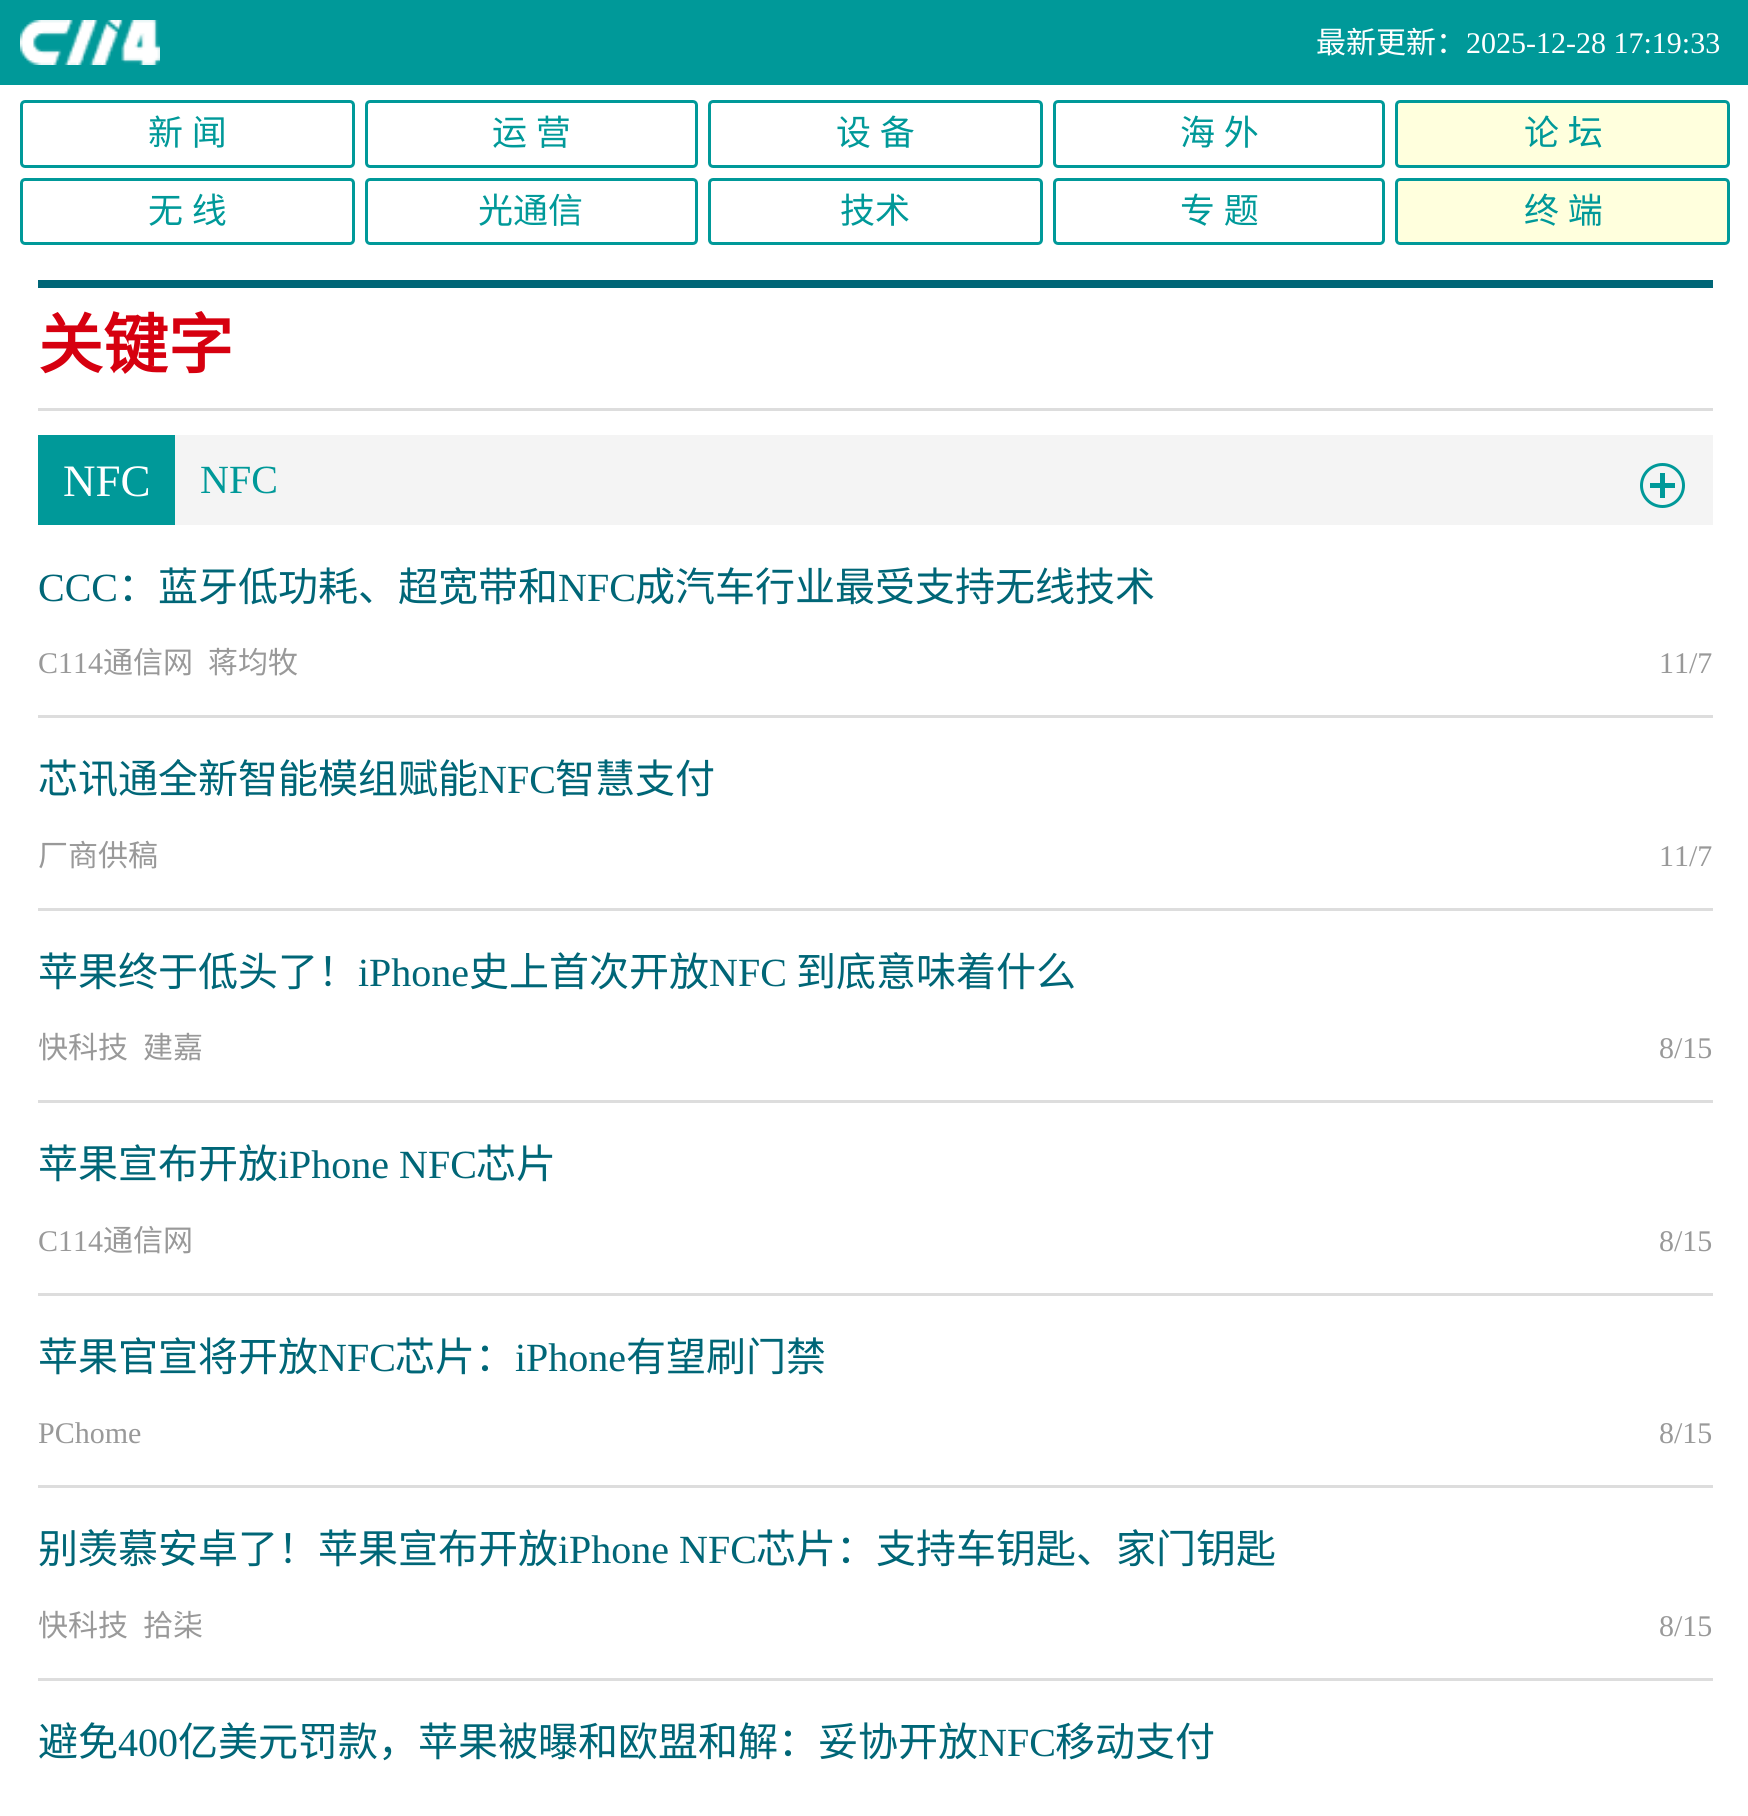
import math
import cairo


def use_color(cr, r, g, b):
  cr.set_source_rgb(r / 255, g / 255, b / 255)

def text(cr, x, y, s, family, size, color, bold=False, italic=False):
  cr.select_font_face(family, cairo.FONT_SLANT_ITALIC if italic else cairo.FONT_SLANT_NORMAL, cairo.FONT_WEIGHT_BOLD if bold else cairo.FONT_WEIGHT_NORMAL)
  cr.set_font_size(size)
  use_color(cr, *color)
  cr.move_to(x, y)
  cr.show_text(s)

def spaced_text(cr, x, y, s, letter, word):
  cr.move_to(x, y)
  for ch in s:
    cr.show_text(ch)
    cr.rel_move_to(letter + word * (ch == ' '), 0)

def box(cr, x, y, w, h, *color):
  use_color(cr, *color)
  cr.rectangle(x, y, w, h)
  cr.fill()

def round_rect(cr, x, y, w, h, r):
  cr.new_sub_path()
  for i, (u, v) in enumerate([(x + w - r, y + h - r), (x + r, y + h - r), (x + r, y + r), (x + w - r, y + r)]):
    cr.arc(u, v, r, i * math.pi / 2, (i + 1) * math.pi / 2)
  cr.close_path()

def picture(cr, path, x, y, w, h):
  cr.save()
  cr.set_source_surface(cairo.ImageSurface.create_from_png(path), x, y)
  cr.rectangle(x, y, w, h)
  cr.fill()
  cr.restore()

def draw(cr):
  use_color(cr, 255, 255, 255)
  cr.paint()
  box(cr, 0, 0, 1748, 85, 0, 153, 153)
  picture(cr, "img_01.png", 20, 20, 140, 45)
  round_rect(cr, 21.5, 101.5, 332, 65, 3.5)
  cr.set_line_width(3)
  cr.stroke()
  round_rect(cr, 366.5, 101.5, 330, 65, 3.5)
  cr.stroke()
  round_rect(cr, 709.5, 101.5, 332, 65, 3.5)
  cr.stroke()
  round_rect(cr, 1054.5, 101.5, 329, 65, 3.5)
  cr.stroke()
  use_color(cr, 255, 255, 221)
  round_rect(cr, 1396.5, 101.5, 332, 65, 3.5)
  cr.fill_preserve()
  use_color(cr, 0, 153, 153)
  cr.stroke()
  round_rect(cr, 21.5, 179.5, 332, 64, 3.5)
  cr.stroke()
  round_rect(cr, 366.5, 179.5, 330, 64, 3.5)
  cr.stroke()
  round_rect(cr, 709.5, 179.5, 332, 64, 3.5)
  cr.stroke()
  round_rect(cr, 1054.5, 179.5, 329, 64, 3.5)
  cr.stroke()
  use_color(cr, 255, 255, 221)
  round_rect(cr, 1396.5, 179.5, 332, 64, 3.5)
  cr.fill_preserve()
  use_color(cr, 0, 153, 153)
  cr.stroke()
  box(cr, 38, 280, 1675, 8, 0, 102, 119)
  box(cr, 38, 408, 1675, 3, 221, 221, 221)
  box(cr, 175, 435, 1538, 90, 244, 244, 244)
  box(cr, 38, 435, 137, 90, 0, 153, 153)
  cr.arc(1662.5, 485.5, 21, 0, 2 * math.pi)
  cr.stroke()
  box(cr, 1650, 483, 25, 5, 0, 153, 153)
  box(cr, 1660, 473, 5, 25, 0, 153, 153)
  box(cr, 38, 715, 1675, 3, 221, 221, 221)
  box(cr, 38, 908, 1675, 3, 221, 221, 221)
  box(cr, 38, 1100, 1675, 3, 221, 221, 221)
  box(cr, 38, 1293, 1675, 3, 221, 221, 221)
  box(cr, 38, 1485, 1675, 3, 221, 221, 221)
  box(cr, 38, 1678, 1675, 3, 221, 221, 221)
  text(cr, 1316, 53, "最新更新：", "Noto Sans CJK SC", 30, (255, 255, 255))
  text(cr, 1466, 53, "2025-12-28 17:19:33", "Liberation Serif", 30, (255, 255, 255))
  cr.select_font_face("Noto Sans CJK SC")
  cr.set_font_size(35)
  use_color(cr, 0, 153, 153)
  spaced_text(cr, 148, 145, "新 闻", 0, 1)
  spaced_text(cr, 492, 145, "运 营", 0, 1)
  spaced_text(cr, 836, 145, "设 备", 0, 1)
  spaced_text(cr, 1180, 145, "海 外", 0, 1)
  spaced_text(cr, 1524, 145, "论 坛", 0, 1)
  spaced_text(cr, 148, 223, "无 线", 0, 1)
  text(cr, 478, 223, "光通信", "Noto Sans CJK SC", 35, (0, 153, 153))
  text(cr, 840, 223, "技术", "Noto Sans CJK SC", 35, (0, 153, 153))
  spaced_text(cr, 1180, 223, "专 题", 0, 1)
  spaced_text(cr, 1524, 223, "终 端", 0, 1)
  text(cr, 38, 368, "关键字", "Noto Sans CJK SC", 65, (214, 0, 15), bold=True)
  text(cr, 63, 496, "NFC", "Liberation Serif", 45, (255, 255, 255))
  text(cr, 200, 493, "NFC", "Liberation Serif", 40, (0, 153, 153))
  text(cr, 38, 601, "CCC", "Liberation Serif", 40, (0, 102, 119))
  text(cr, 118, 601, "：蓝牙低功耗、超宽带和", "Noto Sans CJK SC", 40, (0, 102, 119))
  text(cr, 558, 601, "NFC", "Liberation Serif", 40, (0, 102, 119))
  text(cr, 635, 601, "成汽车行业最受支持无线技术", "Noto Sans CJK SC", 40, (0, 102, 119))
  text(cr, 38, 673, "C114", "Liberation Serif", 30, (153, 153, 153))
  text(cr, 103, 673, "通信网", "Noto Sans CJK SC", 30, (153, 153, 153))
  text(cr, 208, 673, "蒋均牧", "Noto Sans CJK SC", 30, (153, 153, 153))
  text(cr, 1659, 673, "11/7", "Liberation Serif", 30, (153, 153, 153))
  text(cr, 38, 793, "芯讯通全新智能模组赋能", "Noto Sans CJK SC", 40, (0, 102, 119))
  text(cr, 478, 793, "NFC", "Liberation Serif", 40, (0, 102, 119))
  text(cr, 555, 793, "智慧支付", "Noto Sans CJK SC", 40, (0, 102, 119))
  text(cr, 38, 866, "厂商供稿", "Noto Sans CJK SC", 30, (153, 153, 153))
  text(cr, 1659, 866, "11/7", "Liberation Serif", 30, (153, 153, 153))
  text(cr, 38, 986, "苹果终于低头了！", "Noto Sans CJK SC", 40, (0, 102, 119))
  text(cr, 358, 986, "iPhone", "Liberation Serif", 40, (0, 102, 119))
  text(cr, 469, 986, "史上首次开放", "Noto Sans CJK SC", 40, (0, 102, 119))
  text(cr, 709, 986, "NFC", "Liberation Serif", 40, (0, 102, 119))
  text(cr, 796, 986, "到底意味着什么", "Noto Sans CJK SC", 40, (0, 102, 119))
  text(cr, 38, 1058, "快科技", "Noto Sans CJK SC", 30, (153, 153, 153))
  text(cr, 143, 1058, "建嘉", "Noto Sans CJK SC", 30, (153, 153, 153))
  text(cr, 1659, 1058, "8/15", "Liberation Serif", 30, (153, 153, 153))
  text(cr, 38, 1178, "苹果宣布开放", "Noto Sans CJK SC", 40, (0, 102, 119))
  text(cr, 278, 1178, "iPhone NFC", "Liberation Serif", 40, (0, 102, 119))
  text(cr, 476, 1178, "芯片", "Noto Sans CJK SC", 40, (0, 102, 119))
  text(cr, 38, 1251, "C114", "Liberation Serif", 30, (153, 153, 153))
  text(cr, 103, 1251, "通信网", "Noto Sans CJK SC", 30, (153, 153, 153))
  text(cr, 1659, 1251, "8/15", "Liberation Serif", 30, (153, 153, 153))
  text(cr, 38, 1371, "苹果官宣将开放", "Noto Sans CJK SC", 40, (0, 102, 119))
  text(cr, 318, 1371, "NFC", "Liberation Serif", 40, (0, 102, 119))
  text(cr, 395, 1371, "芯片：", "Noto Sans CJK SC", 40, (0, 102, 119))
  text(cr, 515, 1371, "iPhone", "Liberation Serif", 40, (0, 102, 119))
  text(cr, 626, 1371, "有望刷门禁", "Noto Sans CJK SC", 40, (0, 102, 119))
  text(cr, 38, 1443, "PChome", "Liberation Serif", 30, (153, 153, 153))
  text(cr, 1659, 1443, "8/15", "Liberation Serif", 30, (153, 153, 153))
  text(cr, 38, 1563, "别羡慕安卓了！苹果宣布开放", "Noto Sans CJK SC", 40, (0, 102, 119))
  text(cr, 558, 1563, "iPhone NFC", "Liberation Serif", 40, (0, 102, 119))
  text(cr, 756, 1563, "芯片：支持车钥匙、家门钥匙", "Noto Sans CJK SC", 40, (0, 102, 119))
  text(cr, 38, 1636, "快科技", "Noto Sans CJK SC", 30, (153, 153, 153))
  text(cr, 143, 1636, "拾柒", "Noto Sans CJK SC", 30, (153, 153, 153))
  text(cr, 1659, 1636, "8/15", "Liberation Serif", 30, (153, 153, 153))
  text(cr, 38, 1756, "避免", "Noto Sans CJK SC", 40, (0, 102, 119))
  text(cr, 118, 1756, "400", "Liberation Serif", 40, (0, 102, 119))
  text(cr, 178, 1756, "亿美元罚款，苹果被曝和欧盟和解：妥协开放", "Noto Sans CJK SC", 40, (0, 102, 119))
  text(cr, 978, 1756, "NFC", "Liberation Serif", 40, (0, 102, 119))
  text(cr, 1055, 1756, "移动支付", "Noto Sans CJK SC", 40, (0, 102, 119))


surface = cairo.ImageSurface(cairo.FORMAT_RGB24, 1748, 1816)
cr = cairo.Context(surface)
options = cairo.FontOptions()
options.set_hint_metrics(cairo.HINT_METRICS_OFF)
options.set_hint_style(cairo.HINT_STYLE_NONE)
cr.set_font_options(options)
cr.set_miter_limit(4)
draw(cr)
surface.write_to_png("out.png")
